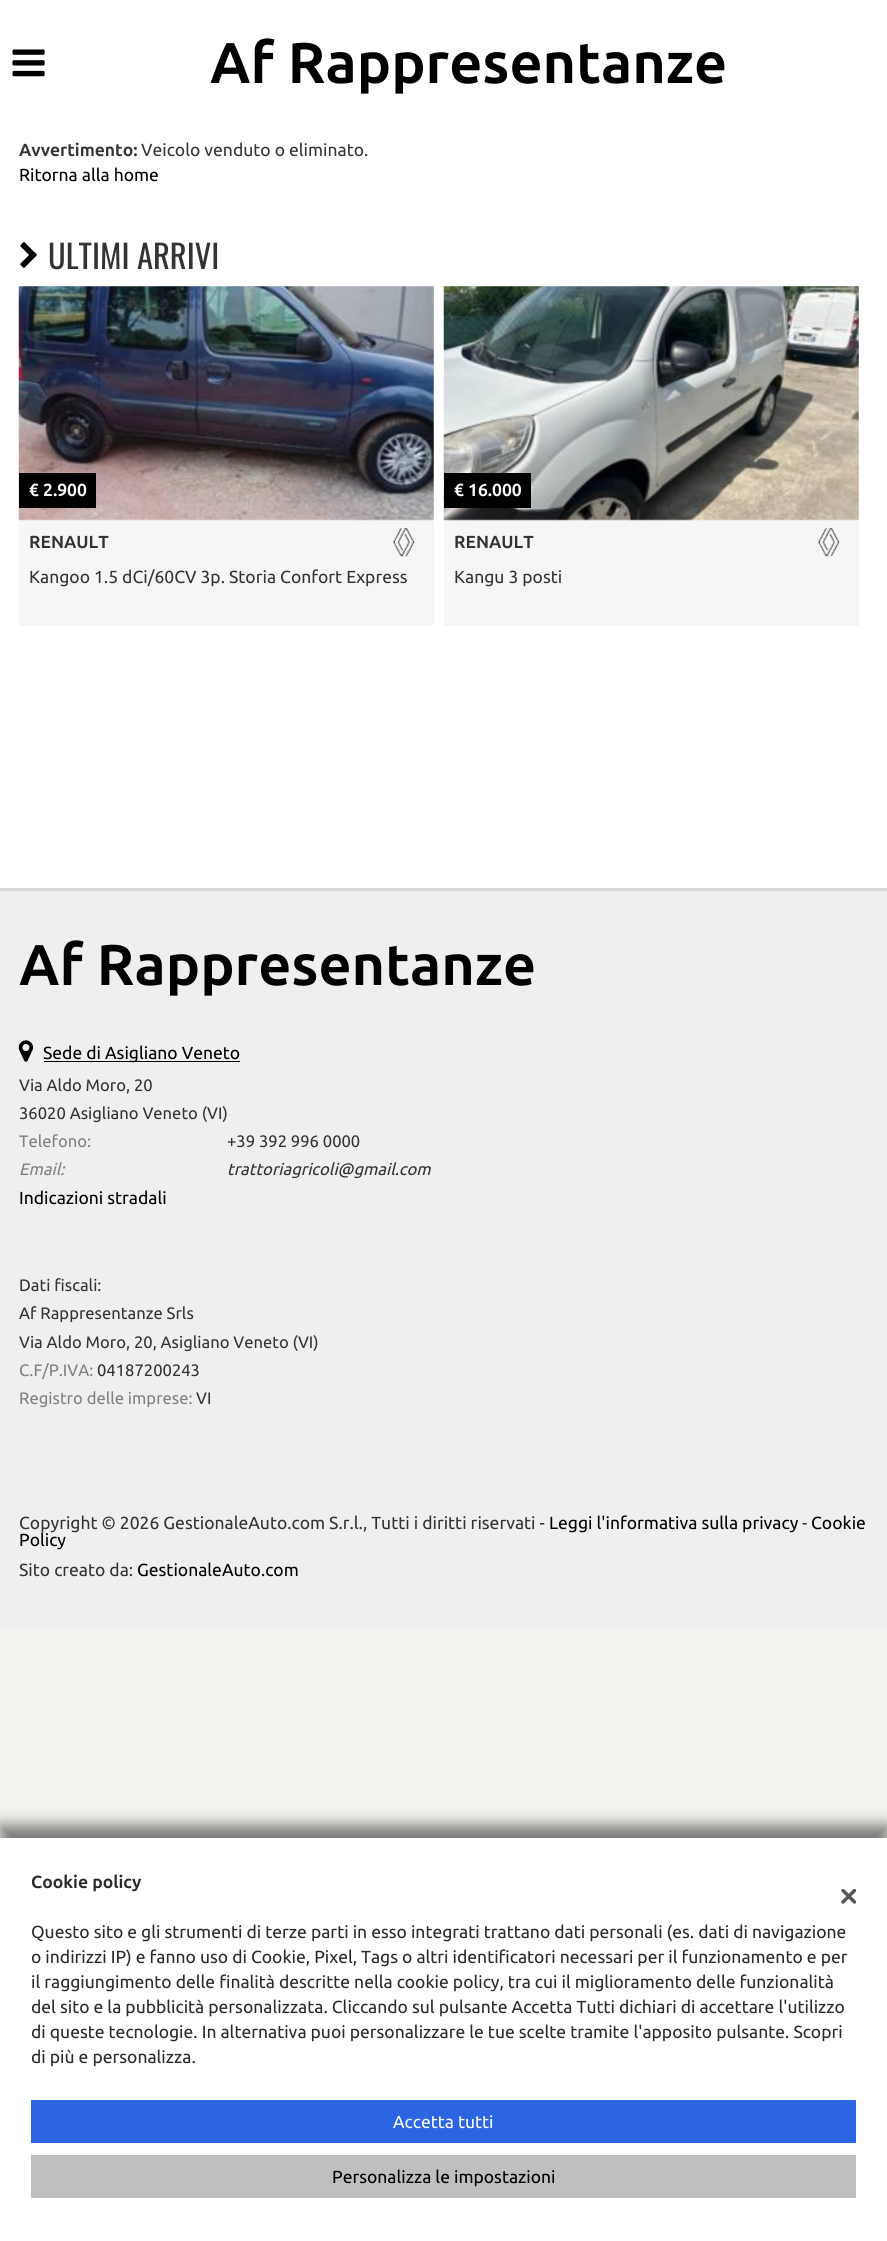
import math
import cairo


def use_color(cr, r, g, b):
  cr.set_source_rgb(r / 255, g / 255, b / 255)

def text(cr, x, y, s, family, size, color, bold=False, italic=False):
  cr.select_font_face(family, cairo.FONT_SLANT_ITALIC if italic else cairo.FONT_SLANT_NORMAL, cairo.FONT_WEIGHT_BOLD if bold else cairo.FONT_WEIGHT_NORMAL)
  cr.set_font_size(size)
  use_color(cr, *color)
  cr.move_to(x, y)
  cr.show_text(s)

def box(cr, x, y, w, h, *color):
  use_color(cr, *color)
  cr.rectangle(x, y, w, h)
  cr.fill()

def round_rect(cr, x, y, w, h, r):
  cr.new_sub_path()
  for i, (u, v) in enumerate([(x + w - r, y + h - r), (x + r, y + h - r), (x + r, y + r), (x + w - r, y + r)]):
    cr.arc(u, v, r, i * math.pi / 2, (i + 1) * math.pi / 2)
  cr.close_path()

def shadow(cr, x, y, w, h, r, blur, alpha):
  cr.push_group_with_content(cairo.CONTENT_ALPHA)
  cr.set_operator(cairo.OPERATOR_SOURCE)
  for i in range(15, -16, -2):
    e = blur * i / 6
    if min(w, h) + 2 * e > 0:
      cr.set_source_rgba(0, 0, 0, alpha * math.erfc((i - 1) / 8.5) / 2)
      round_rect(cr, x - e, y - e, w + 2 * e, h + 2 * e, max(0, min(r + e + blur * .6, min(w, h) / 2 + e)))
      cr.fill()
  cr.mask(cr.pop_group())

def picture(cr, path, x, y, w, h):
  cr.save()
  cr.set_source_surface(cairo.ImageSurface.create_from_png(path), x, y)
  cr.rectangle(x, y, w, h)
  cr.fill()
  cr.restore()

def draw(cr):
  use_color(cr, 243, 242, 238)
  cr.paint()
  box(cr, 0, 0, 887, 888, 255, 255, 255)
  picture(cr, "img_01.png", 12, 49, 33, 28)
  picture(cr, "img_02.png", 20, 242, 17, 26)
  box(cr, 19, 286, 415, 340, 246, 246, 246)
  picture(cr, "img_03.png", 18, 286, 416, 235)
  box(cr, 19, 473, 77, 35, 0, 0, 0)
  picture(cr, "img_04.png", 392, 527, 23, 30)
  box(cr, 444, 286, 415, 340, 246, 246, 246)
  picture(cr, "img_05.png", 443, 286, 416, 235)
  box(cr, 444, 473, 87, 35, 0, 0, 0)
  picture(cr, "img_04.png", 817, 527, 23, 30)
  box(cr, 0, 888, 887, 3, 214, 214, 214)
  box(cr, 0, 891, 887, 738, 239, 239, 239)
  picture(cr, "img_06.png", 18, 1040, 15, 22)
  box(cr, 44, 1061, 196, 1, 0, 0, 0)
  use_color(cr, 0, 0, 0)
  shadow(cr, 0, 1825, 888, 404, 0, 7.5, 0.5)
  box(cr, 0, 1838, 887, 403, 255, 255, 255)
  picture(cr, "img_07.png", 841, 1889, 15, 15)
  box(cr, 31, 2100, 825, 43, 44, 101, 225)
  box(cr, 31, 2155, 825, 43, 191, 191, 191)
  text(cr, 210, 83, "Af Rappresentanze", "Ubuntu", 57.5, (0, 0, 0), bold=True)
  text(cr, 19, 156, "Avvertimento:", "Ubuntu", 17.5, (51, 51, 51), bold=True)
  text(cr, 141, 156, "Veicolo venduto o eliminato.", "Ubuntu", 17.5, (51, 51, 51))
  text(cr, 19, 181, "Ritorna alla home", "Ubuntu", 17.5, (0, 0, 0))
  text(cr, 48, 269, "ULTIMI ARRIVI", "Oswald", 32.5, (51, 51, 51))
  text(cr, 29, 496, "€ 2.900", "Ubuntu", 17.5, (255, 255, 255), bold=True)
  text(cr, 29, 548, "RENAULT", "Ubuntu", 17.5, (51, 51, 51), bold=True)
  text(cr, 29, 583, "Kangoo 1.5 dCi/60CV 3p. Storia Confort Express", "Ubuntu", 17.5, (51, 51, 51))
  text(cr, 454, 496, "€ 16.000", "Ubuntu", 17.5, (255, 255, 255), bold=True)
  text(cr, 454, 548, "RENAULT", "Ubuntu", 17.5, (51, 51, 51), bold=True)
  text(cr, 454, 583, "Kangu 3 posti", "Ubuntu", 17.5, (51, 51, 51))
  text(cr, 19, 985, "Af Rappresentanze", "Ubuntu", 57.5, (0, 0, 0), bold=True)
  text(cr, 43, 1059, "Sede di Asigliano Veneto", "Ubuntu", 17.5, (0, 0, 0))
  text(cr, 19, 1091, "Via Aldo Moro, 20", "Ubuntu", 16.6, (51, 51, 51))
  text(cr, 19, 1119, "36020 Asigliano Veneto (VI)", "Ubuntu", 16.6, (51, 51, 51))
  text(cr, 19, 1147, "Telefono:", "Ubuntu", 16.6, (128, 128, 128))
  text(cr, 227, 1147, "+39 392 996 0000", "Ubuntu", 16.6, (51, 51, 51))
  text(cr, 19, 1175, "Email:", "Ubuntu", 16.6, (128, 128, 128), italic=True)
  text(cr, 227, 1175, "trattoriagricoli@gmail.com", "Ubuntu", 16.6, (51, 51, 51), italic=True)
  text(cr, 19, 1204, "Indicazioni stradali", "Ubuntu", 17.5, (0, 0, 0))
  text(cr, 19, 1291, "Dati fiscali:", "Ubuntu", 16.6, (51, 51, 51))
  text(cr, 19, 1319, "Af Rappresentanze Srls", "Ubuntu", 16.6, (51, 51, 51))
  text(cr, 19, 1348, "Via Aldo Moro, 20, Asigliano Veneto (VI)", "Ubuntu", 16.6, (51, 51, 51))
  text(cr, 19, 1376, "C.F/P.IVA:", "Ubuntu", 16.6, (128, 128, 128))
  text(cr, 97, 1376, "04187200243", "Ubuntu", 16.6, (51, 51, 51))
  text(cr, 19, 1404, "Registro delle imprese:", "Ubuntu", 16.6, (128, 128, 128))
  text(cr, 196, 1404, "VI", "Ubuntu", 16.6, (51, 51, 51))
  text(cr, 19, 1529, "Copyright © 2026 GestionaleAuto.com S.r.l., Tutti i diritti riservati -", "Ubuntu", 17.5, (51, 51, 51))
  text(cr, 549, 1529, "Leggi l'informativa sulla privacy", "Ubuntu", 17.5, (0, 0, 0))
  text(cr, 802, 1529, "-", "Ubuntu", 17.5, (51, 51, 51))
  text(cr, 811, 1529, "Cookie", "Ubuntu", 17.5, (0, 0, 0))
  text(cr, 19, 1546, "Policy", "Ubuntu", 17.5, (0, 0, 0))
  text(cr, 19, 1576, "Sito creato da:", "Ubuntu", 17.5, (51, 51, 51))
  text(cr, 137, 1576, "GestionaleAuto.com", "Ubuntu", 17.5, (0, 0, 0))
  text(cr, 31, 1888, "Cookie policy", "Ubuntu", 17.5, (43, 41, 41), bold=True)
  text(cr, 31, 1938, "Questo sito e gli strumenti di terze parti in esso integrati trattano dati personali (es. dati di navigazione", "Ubuntu", 17.5, (43, 41, 41))
  text(cr, 31, 1963, "o indirizzi IP) e fanno uso di Cookie, Pixel, Tags o altri identificatori necessari per il funzionamento e per", "Ubuntu", 17.5, (43, 41, 41))
  text(cr, 31, 1988, "il raggiungimento delle finalità descritte nella cookie policy, tra cui il miglioramento delle funzionalità", "Ubuntu", 17.5, (43, 41, 41))
  text(cr, 31, 2013, "del sito e la pubblicità personalizzata. Cliccando sul pulsante Accetta Tutti dichiari di accettare l'utilizzo", "Ubuntu", 17.5, (43, 41, 41))
  text(cr, 31, 2038, "di queste tecnologie. In alternativa puoi personalizzare le tue scelte tramite l'apposito pulsante. Scopri", "Ubuntu", 17.5, (43, 41, 41))
  text(cr, 31, 2063, "di più e personalizza.", "Ubuntu", 17.5, (43, 41, 41))
  text(cr, 393, 2128, "Accetta tutti", "Ubuntu", 17.5, (255, 255, 255))
  text(cr, 332, 2183, "Personalizza le impostazioni", "Ubuntu", 17.5, (0, 0, 0))


surface = cairo.ImageSurface(cairo.FORMAT_RGB24, 887, 2241)
cr = cairo.Context(surface)
options = cairo.FontOptions()
options.set_hint_metrics(cairo.HINT_METRICS_OFF)
options.set_hint_style(cairo.HINT_STYLE_NONE)
cr.set_font_options(options)
cr.set_miter_limit(4)
draw(cr)
surface.write_to_png("out.png")
